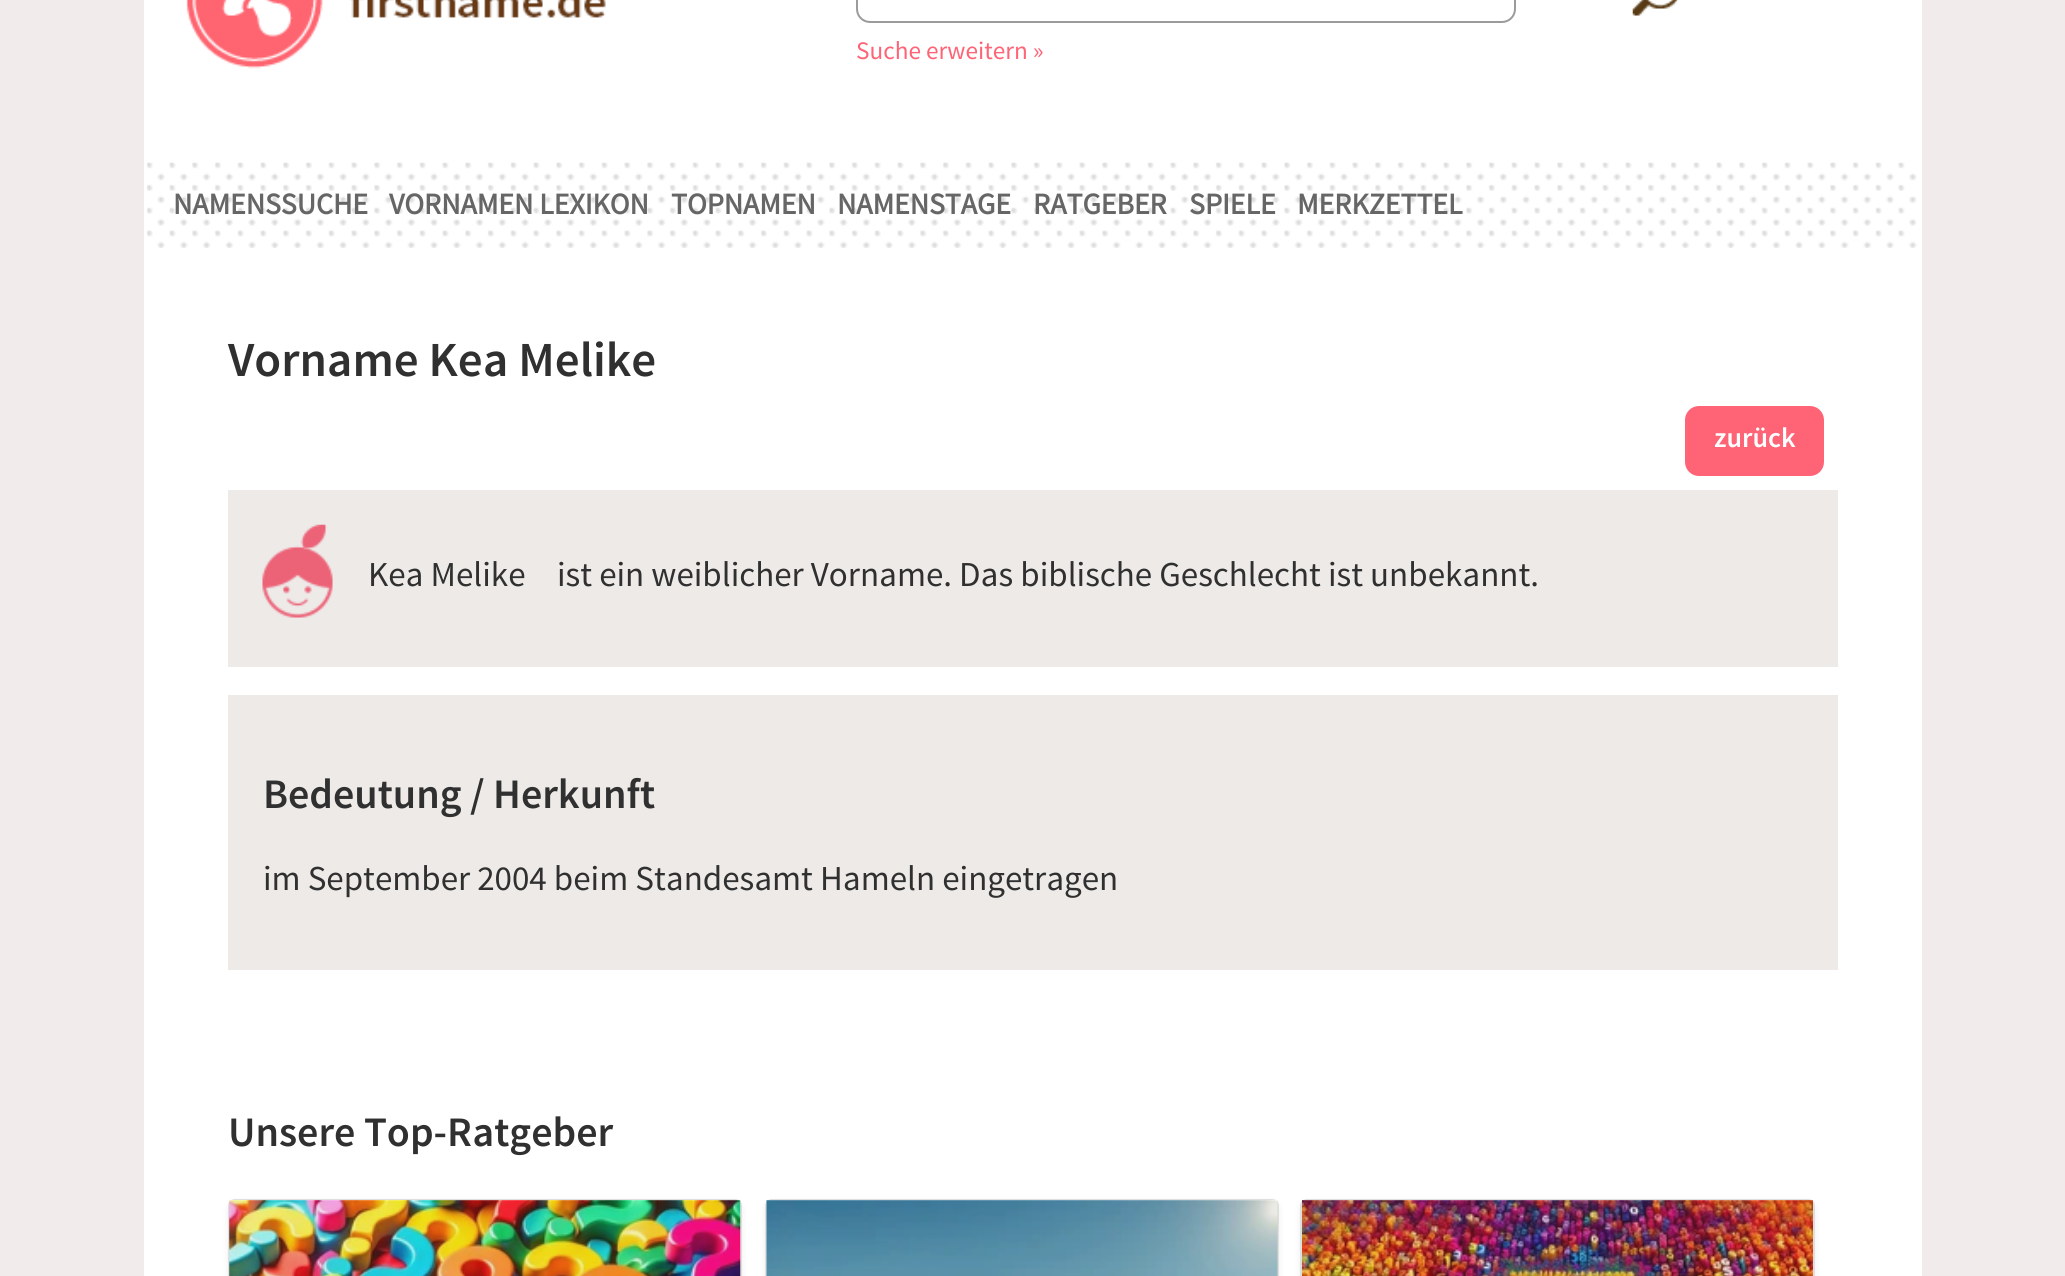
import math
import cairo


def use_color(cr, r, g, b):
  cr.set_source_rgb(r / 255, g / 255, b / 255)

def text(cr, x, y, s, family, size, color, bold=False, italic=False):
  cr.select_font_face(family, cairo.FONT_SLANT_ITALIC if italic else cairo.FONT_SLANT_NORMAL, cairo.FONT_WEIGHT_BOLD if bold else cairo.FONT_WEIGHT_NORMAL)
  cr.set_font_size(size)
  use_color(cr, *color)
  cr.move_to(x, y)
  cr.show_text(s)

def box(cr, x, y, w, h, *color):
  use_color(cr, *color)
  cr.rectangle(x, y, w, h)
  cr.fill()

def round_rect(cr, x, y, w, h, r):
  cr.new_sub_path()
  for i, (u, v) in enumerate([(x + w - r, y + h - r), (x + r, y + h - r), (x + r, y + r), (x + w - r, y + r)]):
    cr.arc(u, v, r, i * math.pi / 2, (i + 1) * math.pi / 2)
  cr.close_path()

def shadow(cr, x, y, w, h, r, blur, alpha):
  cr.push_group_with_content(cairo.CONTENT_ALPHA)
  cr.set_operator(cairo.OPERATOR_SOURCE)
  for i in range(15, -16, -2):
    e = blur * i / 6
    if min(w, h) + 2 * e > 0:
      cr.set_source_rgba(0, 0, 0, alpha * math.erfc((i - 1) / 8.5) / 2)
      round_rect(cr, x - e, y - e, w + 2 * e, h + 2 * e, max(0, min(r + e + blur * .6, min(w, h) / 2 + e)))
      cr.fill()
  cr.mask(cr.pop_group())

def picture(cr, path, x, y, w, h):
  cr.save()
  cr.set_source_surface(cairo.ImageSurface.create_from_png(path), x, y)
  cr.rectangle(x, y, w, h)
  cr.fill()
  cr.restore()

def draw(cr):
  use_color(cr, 242, 235, 235)
  cr.paint()
  box(cr, 144, 0, 1778, 1276, 255, 255, 255)
  picture(cr, "img_01.png", 186, 0, 420, 69)
  round_rect(cr, 857, -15, 658, 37, 13)
  use_color(cr, 155, 155, 155)
  cr.stroke()
  picture(cr, "img_02.png", 1632, 0, 47, 16)
  picture(cr, "img_03.png", 147, 162, 1770, 86)
  use_color(cr, 255, 100, 118)
  round_rect(cr, 1685, 406, 139, 70, 14)
  cr.fill()
  box(cr, 228, 490, 1610, 177, 237, 234, 232)
  picture(cr, "img_04.png", 262, 524, 71, 94)
  box(cr, 228, 695, 1610, 275, 237, 234, 232)
  use_color(cr, 0, 0, 0)
  shadow(cr, 228, 1202, 514, 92, 7, 3.5, 0.07)
  round_rect(cr, 229, 1200, 512, 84, 6)
  use_color(cr, 223, 223, 223)
  cr.stroke()
  picture(cr, "img_05.png", 229, 1200, 512, 76)
  cr.set_source_rgba(0.502, 0.502, 0.502, 0.1)
  cr.rectangle(229, 1201, 511, 75)
  cr.fill()
  use_color(cr, 0, 0, 0)
  shadow(cr, 765, 1202, 514, 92, 7, 3.5, 0.07)
  round_rect(cr, 766, 1200, 512, 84, 6)
  use_color(cr, 223, 223, 223)
  cr.stroke()
  picture(cr, "img_06.png", 766, 1200, 512, 76)
  cr.set_source_rgba(0.502, 0.502, 0.502, 0.1)
  cr.rectangle(767, 1201, 511, 75)
  cr.fill()
  use_color(cr, 0, 0, 0)
  shadow(cr, 1300, 1202, 515, 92, 7, 3.5, 0.07)
  round_rect(cr, 1301, 1200, 513, 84, 6)
  use_color(cr, 223, 223, 223)
  cr.stroke()
  picture(cr, "img_07.png", 1302, 1200, 511, 76)
  text(cr, 856, 59, "Suche erweitern »", "Source Sans Pro", 25.25, (255, 100, 118))
  text(cr, 173, 214, "NAMENSSUCHE", "Source Sans Pro", 29.75, (102, 102, 102), bold=True)
  text(cr, 389, 214, "VORNAMEN LEXIKON", "Source Sans Pro", 29.75, (102, 102, 102), bold=True)
  text(cr, 671, 214, "TOPNAMEN", "Source Sans Pro", 29.75, (102, 102, 102), bold=True)
  text(cr, 837, 214, "NAMENSTAGE", "Source Sans Pro", 29.75, (102, 102, 102), bold=True)
  text(cr, 1033, 214, "RATGEBER", "Source Sans Pro", 29.75, (102, 102, 102), bold=True)
  text(cr, 1189, 214, "SPIELE", "Source Sans Pro", 29.75, (102, 102, 102), bold=True)
  text(cr, 1297, 214, "MERKZETTEL", "Source Sans Pro", 29.75, (102, 102, 102), bold=True)
  text(cr, 228, 376, "Vorname Kea Melike", "Source Sans Pro SemiBold", 49, (48, 48, 48))
  text(cr, 1714, 447, "zurück", "Source Sans Pro SemiBold", 28, (255, 255, 255))
  text(cr, 368, 586, "Kea Melike", "Source Sans Pro", 35, (48, 48, 48))
  text(cr, 557, 586, "ist ein weiblicher Vorname. Das biblische Geschlecht ist unbekannt.", "Source Sans Pro", 35, (48, 48, 48))
  text(cr, 263, 808, "Bedeutung / Herkunft", "Source Sans Pro SemiBold", 42, (48, 48, 48))
  text(cr, 263, 890, "im September 2004 beim Standesamt Hameln eingetragen", "Source Sans Pro", 35, (48, 48, 48))
  text(cr, 228, 1146, "Unsere Top-Ratgeber", "Source Sans Pro SemiBold", 42, (48, 48, 48))


surface = cairo.ImageSurface(cairo.FORMAT_RGB24, 2065, 1276)
cr = cairo.Context(surface)
options = cairo.FontOptions()
options.set_hint_metrics(cairo.HINT_METRICS_OFF)
options.set_hint_style(cairo.HINT_STYLE_NONE)
cr.set_font_options(options)
cr.set_miter_limit(4)
draw(cr)
surface.write_to_png("out.png")
